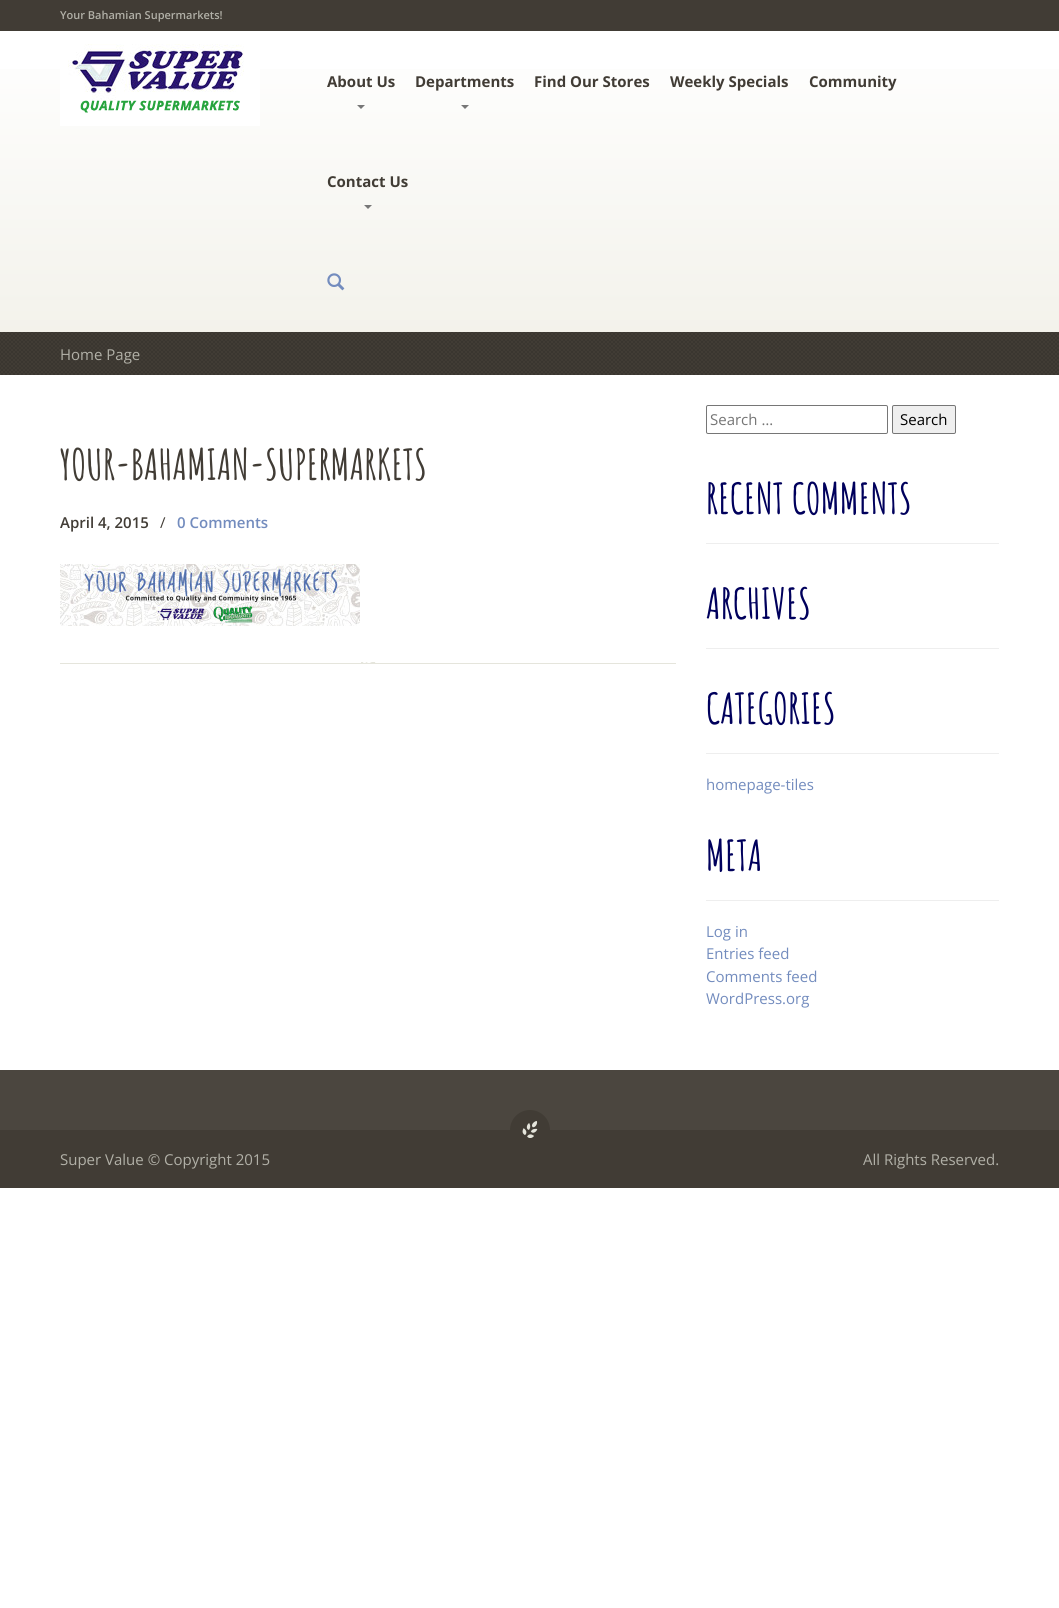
import math
import cairo


def use_color(cr, r, g, b):
  cr.set_source_rgb(r / 255, g / 255, b / 255)

def text(cr, x, y, s, family, size, color, bold=False, italic=False):
  cr.select_font_face(family, cairo.FONT_SLANT_ITALIC if italic else cairo.FONT_SLANT_NORMAL, cairo.FONT_WEIGHT_BOLD if bold else cairo.FONT_WEIGHT_NORMAL)
  cr.set_font_size(size)
  use_color(cr, *color)
  cr.move_to(x, y)
  cr.show_text(s)

def box(cr, x, y, w, h, *color):
  use_color(cr, *color)
  cr.rectangle(x, y, w, h)
  cr.fill()

def round_rect(cr, x, y, w, h, r):
  cr.new_sub_path()
  for i, (u, v) in enumerate([(x + w - r, y + h - r), (x + r, y + h - r), (x + r, y + r), (x + w - r, y + r)]):
    cr.arc(u, v, r, i * math.pi / 2, (i + 1) * math.pi / 2)
  cr.close_path()

def picture(cr, path, x, y, w, h):
  cr.save()
  cr.set_source_surface(cairo.ImageSurface.create_from_png(path), x, y)
  cr.rectangle(x, y, w, h)
  cr.fill()
  cr.restore()

def draw(cr):
  use_color(cr, 255, 255, 255)
  cr.paint()
  box(cr, 0, 0, 1059, 31, 65, 60, 53)
  gradient = cairo.LinearGradient(530, 31, 530, 332)
  gradient.add_color_stop_rgba(0, 1, 1, 1, 1)
  gradient.add_color_stop_rgba(1, 0.953, 0.949, 0.922, 1)
  cr.set_source(gradient)
  cr.rectangle(0, 69, 1059, 263)
  cr.fill()
  picture(cr, "img_01.png", 60, 44, 200, 82)
  use_color(cr, 119, 119, 119)
  cr.new_path()
  cr.move_to(357, 105)
  cr.line_to(365, 105)
  cr.line_to(361, 109)
  cr.close_path()
  cr.fill()
  cr.new_path()
  cr.move_to(461, 105)
  cr.line_to(469, 105)
  cr.line_to(465, 109)
  cr.close_path()
  cr.fill()
  cr.new_path()
  cr.move_to(364, 205)
  cr.line_to(372, 205)
  cr.line_to(368, 209)
  cr.close_path()
  cr.fill()
  picture(cr, "img_02.png", 327, 273, 18, 18)
  box(cr, 0, 332, 1059, 43, 65, 60, 53)
  picture(cr, "img_03.png", 0, 332, 1059, 43)
  picture(cr, "img_04.png", 60, 564, 300, 62)
  box(cr, 60, 663, 616, 1, 229, 229, 220)
  picture(cr, "img_05.png", 361, 662, 15, 1)
  round_rect(cr, 706.5, 405.5, 181, 28, 1.5)
  use_color(cr, 118, 118, 118)
  cr.set_line_width(1)
  cr.stroke()
  use_color(cr, 239, 239, 239)
  round_rect(cr, 892.5, 405.5, 63, 28, 1.5)
  cr.fill_preserve()
  use_color(cr, 118, 118, 118)
  cr.stroke()
  box(cr, 706, 543, 293, 1, 238, 238, 238)
  box(cr, 706, 648, 293, 1, 238, 238, 238)
  box(cr, 706, 753, 293, 1, 238, 238, 238)
  box(cr, 706, 900, 293, 1, 238, 238, 238)
  box(cr, 0, 1070, 1059, 60, 75, 70, 63)
  box(cr, 0, 1130, 1059, 58, 65, 60, 53)
  cr.arc(530, 1130, 20, 0, 2 * math.pi)
  cr.fill()
  picture(cr, "img_06.png", 522, 1121, 16, 17)
  text(cr, 60, 19, "Your Bahamian Supermarkets!", "Open Sans SemiBold", 11, (177, 176, 167))
  text(cr, 327, 87, "About Us", "Open Sans", 15, (65, 60, 53), bold=True)
  text(cr, 415, 87, "Departments", "Open Sans", 15, (65, 60, 53), bold=True)
  text(cr, 534, 87, "Find Our Stores", "Open Sans", 15, (65, 60, 53), bold=True)
  text(cr, 670, 87, "Weekly Specials", "Open Sans", 15, (65, 60, 53), bold=True)
  text(cr, 809, 87, "Community", "Open Sans", 15, (65, 60, 53), bold=True)
  text(cr, 327, 187, "Contact Us", "Open Sans", 15, (65, 60, 53), bold=True)
  text(cr, 60, 360, "Home Page", "Open Sans", 15, (177, 176, 167))
  text(cr, 60, 480, "YOUR-BAHAMIAN-SUPERMARKETS", "Amatic SC", 42, (65, 60, 53), bold=True)
  text(cr, 60, 528, "April 4, 2015", "Open Sans SemiBold", 15, (65, 60, 53))
  text(cr, 160, 528, "/", "Open Sans", 15, (65, 60, 53))
  text(cr, 177, 528, "0 Comments", "Open Sans SemiBold", 15, (115, 140, 190))
  text(cr, 710, 425, "Search …", "Open Sans", 15, (117, 117, 117))
  text(cr, 900, 425, "Search", "Open Sans", 15, (0, 0, 0))
  text(cr, 706, 514, "RECENT COMMENTS", "Amatic SC", 42, (0, 0, 92), bold=True)
  text(cr, 706, 619, "ARCHIVES", "Amatic SC", 42, (0, 0, 92), bold=True)
  text(cr, 706, 724, "CATEGORIES", "Amatic SC", 42, (0, 0, 92), bold=True)
  text(cr, 706, 790, "homepage-tiles", "Open Sans", 15, (115, 140, 190))
  text(cr, 706, 871, "META", "Amatic SC", 42, (0, 0, 92), bold=True)
  text(cr, 706, 937, "Log in", "Open Sans", 15, (115, 140, 190))
  text(cr, 706, 959, "Entries feed", "Open Sans", 15, (115, 140, 190))
  text(cr, 706, 982, "Comments feed", "Open Sans", 15, (115, 140, 190))
  text(cr, 706, 1004, "WordPress.org", "Open Sans", 15, (115, 140, 190))
  text(cr, 60, 1165, "Super Value © Copyright 2015", "Open Sans", 15, (177, 176, 167))
  text(cr, 863, 1165, "All Rights Reserved.", "Open Sans", 15, (177, 176, 167))


surface = cairo.ImageSurface(cairo.FORMAT_RGB24, 1059, 1608)
cr = cairo.Context(surface)
options = cairo.FontOptions()
options.set_hint_metrics(cairo.HINT_METRICS_OFF)
options.set_hint_style(cairo.HINT_STYLE_NONE)
cr.set_font_options(options)
cr.set_miter_limit(4)
draw(cr)
surface.write_to_png("out.png")
